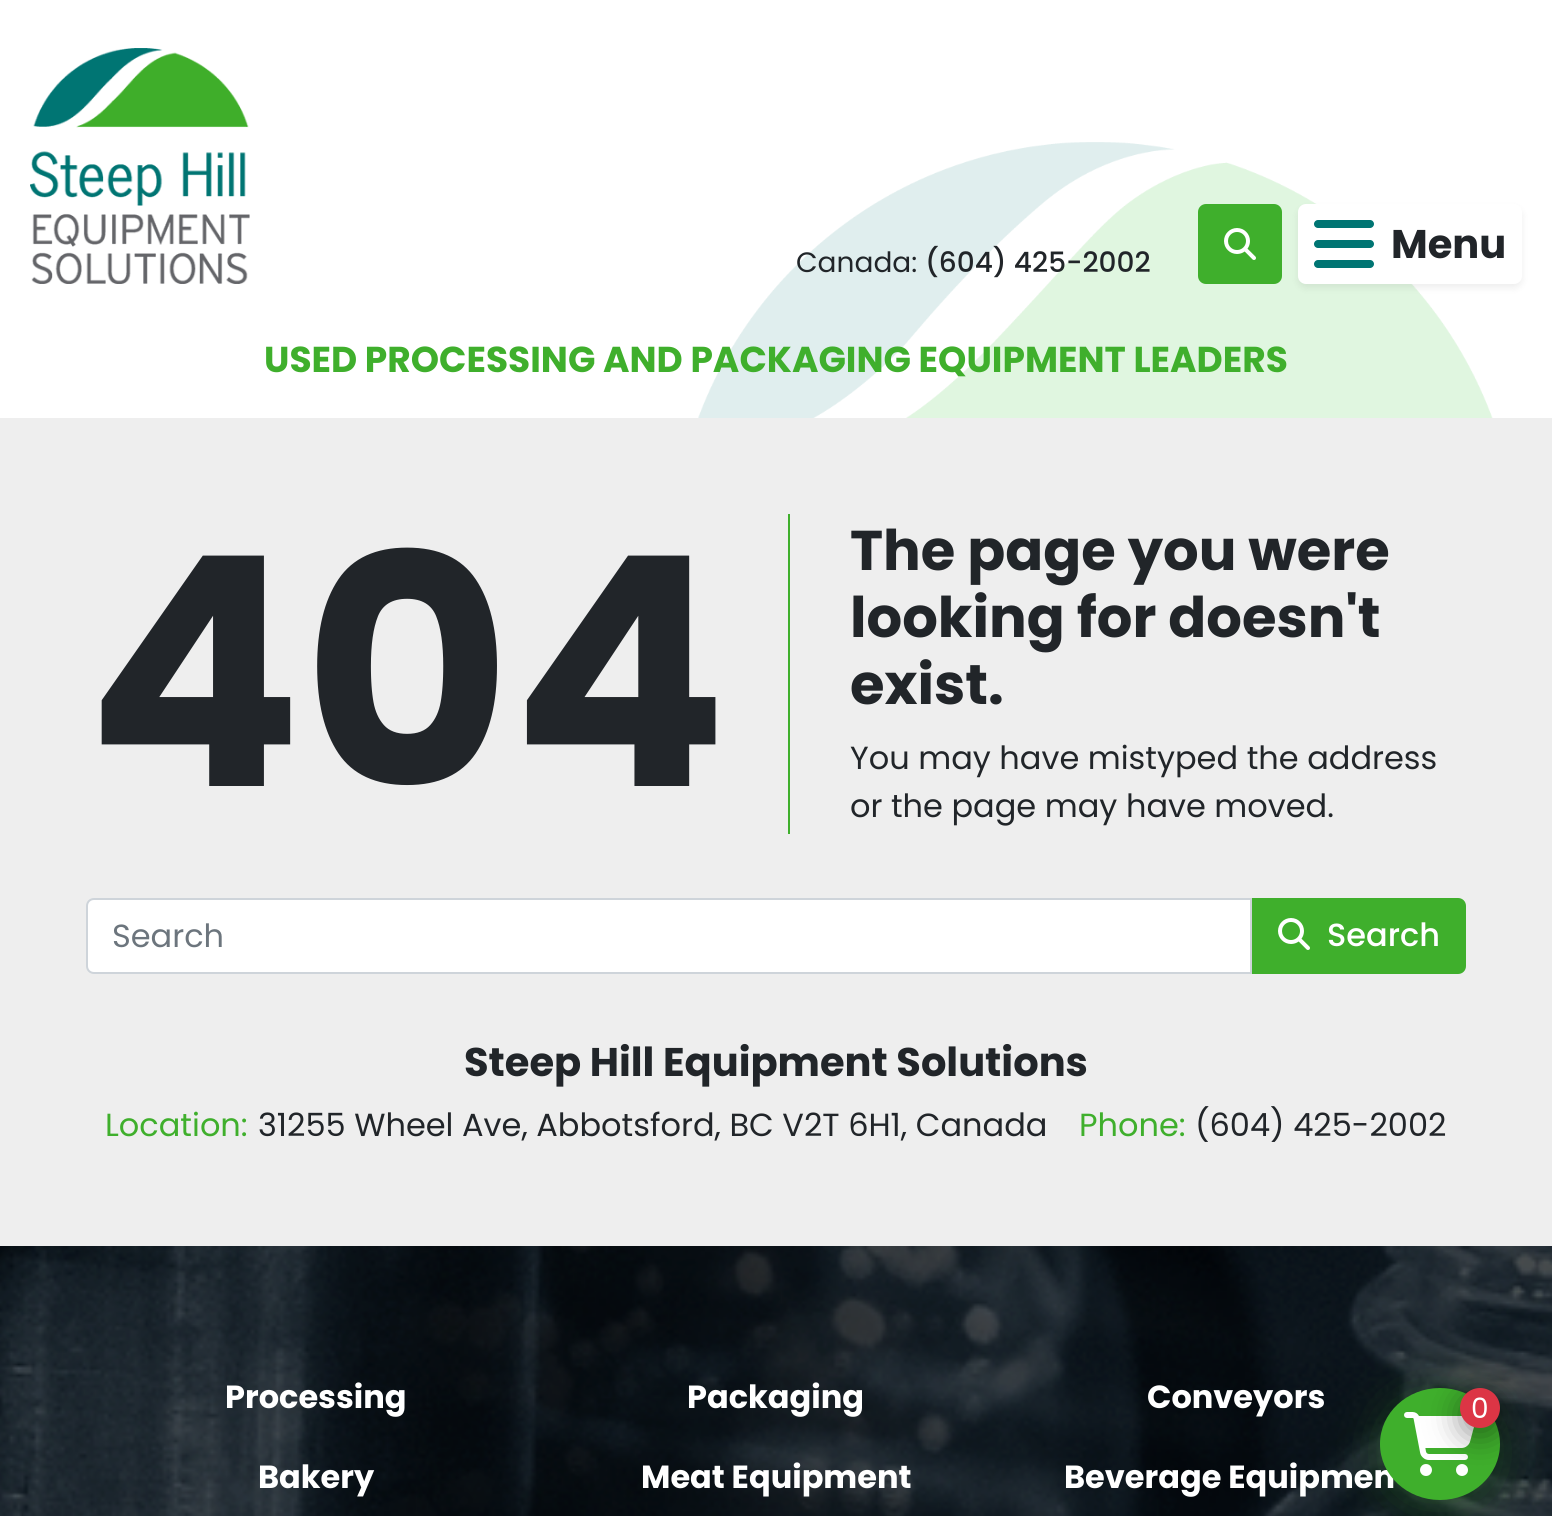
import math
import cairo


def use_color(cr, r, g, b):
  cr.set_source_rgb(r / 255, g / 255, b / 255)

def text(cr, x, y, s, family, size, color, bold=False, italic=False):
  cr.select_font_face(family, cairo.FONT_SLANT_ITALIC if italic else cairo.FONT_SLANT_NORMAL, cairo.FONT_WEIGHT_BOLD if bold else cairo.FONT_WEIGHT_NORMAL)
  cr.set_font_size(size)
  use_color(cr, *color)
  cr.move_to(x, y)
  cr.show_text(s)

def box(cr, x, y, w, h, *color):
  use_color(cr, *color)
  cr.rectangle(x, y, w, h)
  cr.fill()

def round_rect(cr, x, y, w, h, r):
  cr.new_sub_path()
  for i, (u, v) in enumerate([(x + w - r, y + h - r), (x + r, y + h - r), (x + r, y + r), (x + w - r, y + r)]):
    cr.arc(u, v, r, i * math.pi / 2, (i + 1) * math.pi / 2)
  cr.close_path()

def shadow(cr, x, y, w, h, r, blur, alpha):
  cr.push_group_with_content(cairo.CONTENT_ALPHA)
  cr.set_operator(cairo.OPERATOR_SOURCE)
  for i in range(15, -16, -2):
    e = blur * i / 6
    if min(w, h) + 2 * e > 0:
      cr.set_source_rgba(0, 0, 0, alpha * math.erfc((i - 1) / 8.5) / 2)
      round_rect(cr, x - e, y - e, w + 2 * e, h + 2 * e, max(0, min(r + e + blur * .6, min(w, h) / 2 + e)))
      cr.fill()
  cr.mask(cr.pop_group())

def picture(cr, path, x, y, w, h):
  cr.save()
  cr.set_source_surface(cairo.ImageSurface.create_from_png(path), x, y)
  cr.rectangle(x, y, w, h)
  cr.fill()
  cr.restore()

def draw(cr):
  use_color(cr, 238, 238, 238)
  cr.paint()
  box(cr, 0, 0, 1552, 418, 255, 255, 255)
  picture(cr, "img_01.png", 698, 142, 795, 276)
  picture(cr, "img_02.png", 30, 48, 220, 236)
  use_color(cr, 63, 175, 44)
  round_rect(cr, 1199, 205, 82, 78, 7)
  cr.fill_preserve()
  cr.stroke()
  picture(cr, "img_03.png", 1224, 228, 32, 32)
  use_color(cr, 0, 0, 0)
  shadow(cr, 1298, 208, 224, 80, 8, 4, 0.07)
  use_color(cr, 255, 255, 255)
  round_rect(cr, 1298, 204, 224, 80, 8)
  cr.fill()
  use_color(cr, 0, 117, 115)
  round_rect(cr, 1314, 240, 60, 8, 4)
  cr.fill()
  round_rect(cr, 1314, 220, 60, 8, 4)
  cr.fill()
  round_rect(cr, 1314, 260, 60, 8, 4)
  cr.fill()
  box(cr, 788, 514, 2, 320, 63, 175, 44)
  use_color(cr, 255, 255, 255)
  cr.new_path()
  cr.move_to(94, 899)
  cr.line_to(1251, 899)
  cr.line_to(1251, 973)
  cr.line_to(94, 973)
  cr.curve_to(90, 973, 87, 970, 87, 966)
  cr.line_to(87, 906)
  cr.curve_to(87, 902, 90, 899, 94, 899)
  cr.close_path()
  cr.fill_preserve()
  use_color(cr, 206, 212, 218)
  cr.stroke()
  use_color(cr, 63, 175, 44)
  cr.new_path()
  cr.move_to(1253, 899)
  cr.line_to(1458, 899)
  cr.curve_to(1462, 899, 1465, 902, 1465, 906)
  cr.line_to(1465, 966)
  cr.curve_to(1465, 970, 1462, 973, 1458, 973)
  cr.line_to(1253, 973)
  cr.close_path()
  cr.fill_preserve()
  cr.stroke()
  picture(cr, "img_03.png", 1278, 918, 32, 32)
  box(cr, 0, 1246, 1552, 270, 0, 0, 0)
  picture(cr, "img_04.png", 0, 1246, 1552, 270)
  use_color(cr, 41, 114, 29)
  shadow(cr, 1380, 1396, 120, 112, 56, 24, 0.4)
  text(cr, 796, 272, "Canada:", "Poppins", 28, (33, 37, 41))
  text(cr, 925, 272, "(604) 425-2002", "Poppins Medium", 28, (33, 37, 41))
  text(cr, 1391, 258, "Menu", "Poppins", 40, (33, 37, 41), bold=True)
  text(cr, 264, 372, "USED PROCESSING AND PACKAGING EQUIPMENT LEADERS", "Poppins", 36, (63, 175, 44), bold=True)
  text(cr, 86, 786, "404", "Poppins", 320, (33, 37, 41), bold=True)
  text(cr, 850, 570, "The page you were", "Poppins", 56, (33, 37, 41), bold=True)
  text(cr, 850, 637, "looking for doesn't", "Poppins", 56, (33, 37, 41), bold=True)
  text(cr, 850, 704, "exist.", "Poppins", 56, (33, 37, 41), bold=True)
  text(cr, 850, 769, "You may have mistyped the address", "Poppins", 32, (33, 37, 41))
  text(cr, 850, 817, "or the page may have moved.", "Poppins", 32, (33, 37, 41))
  text(cr, 112, 947, "Search", "Poppins", 32, (108, 117, 125))
  text(cr, 1327, 946, "Search", "Poppins Medium", 32, (255, 255, 255))
  text(cr, 464, 1076, "Steep Hill Equipment Solutions", "Poppins", 40, (33, 37, 41), bold=True)
  text(cr, 105, 1136, "Location:", "Poppins", 32, (63, 175, 44))
  text(cr, 258, 1136, "31255 Wheel Ave, Abbotsford, BC V2T 6H1, Canada", "Poppins", 32, (33, 37, 41))
  text(cr, 1079, 1136, "Phone:", "Poppins", 32, (63, 175, 44))
  text(cr, 1195, 1136, "(604) 425-2002", "Poppins", 32, (33, 37, 41))
  text(cr, 225, 1408, "Processing", "Poppins", 32, (255, 255, 255), bold=True)
  text(cr, 687, 1408, "Packaging", "Poppins", 32, (255, 255, 255), bold=True)
  text(cr, 1147, 1408, "Conveyors", "Poppins", 32, (255, 255, 255), bold=True)
  text(cr, 258, 1488, "Bakery", "Poppins", 32, (255, 255, 255), bold=True)
  text(cr, 641, 1488, "Meat Equipment", "Poppins", 32, (255, 255, 255), bold=True)
  text(cr, 1064, 1488, "Beverage Equipmen", "Poppins", 32, (255, 255, 255), bold=True)
  use_color(cr, 63, 175, 44)
  cr.new_path()
  cr.move_to(1440, 1388)
  cr.curve_to(1473, 1388, 1500, 1413, 1500, 1444)
  cr.curve_to(1500, 1475, 1473, 1500, 1440, 1500)
  cr.curve_to(1407, 1500, 1380, 1475, 1380, 1444)
  cr.curve_to(1380, 1413, 1407, 1388, 1440, 1388)
  cr.close_path()
  cr.fill()
  picture(cr, "img_05.png", 1404, 1412, 70, 64)
  use_color(cr, 0, 0, 0)
  shadow(cr, 1460, 1396, 40, 40, 20, 16, 0.4)
  use_color(cr, 220, 53, 69)
  cr.arc(1480, 1408, 20, 0, 2 * math.pi)
  cr.fill()
  text(cr, 1471, 1418, "0", "Poppins", 28, (255, 255, 255))


surface = cairo.ImageSurface(cairo.FORMAT_RGB24, 1552, 1516)
cr = cairo.Context(surface)
options = cairo.FontOptions()
options.set_hint_metrics(cairo.HINT_METRICS_OFF)
options.set_hint_style(cairo.HINT_STYLE_NONE)
cr.set_font_options(options)
cr.set_miter_limit(4)
draw(cr)
surface.write_to_png("out.png")
